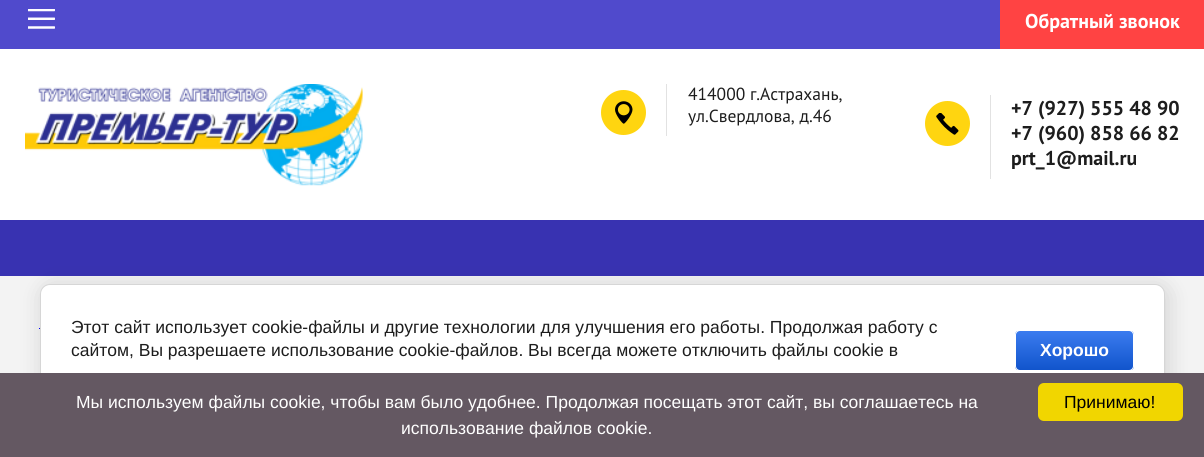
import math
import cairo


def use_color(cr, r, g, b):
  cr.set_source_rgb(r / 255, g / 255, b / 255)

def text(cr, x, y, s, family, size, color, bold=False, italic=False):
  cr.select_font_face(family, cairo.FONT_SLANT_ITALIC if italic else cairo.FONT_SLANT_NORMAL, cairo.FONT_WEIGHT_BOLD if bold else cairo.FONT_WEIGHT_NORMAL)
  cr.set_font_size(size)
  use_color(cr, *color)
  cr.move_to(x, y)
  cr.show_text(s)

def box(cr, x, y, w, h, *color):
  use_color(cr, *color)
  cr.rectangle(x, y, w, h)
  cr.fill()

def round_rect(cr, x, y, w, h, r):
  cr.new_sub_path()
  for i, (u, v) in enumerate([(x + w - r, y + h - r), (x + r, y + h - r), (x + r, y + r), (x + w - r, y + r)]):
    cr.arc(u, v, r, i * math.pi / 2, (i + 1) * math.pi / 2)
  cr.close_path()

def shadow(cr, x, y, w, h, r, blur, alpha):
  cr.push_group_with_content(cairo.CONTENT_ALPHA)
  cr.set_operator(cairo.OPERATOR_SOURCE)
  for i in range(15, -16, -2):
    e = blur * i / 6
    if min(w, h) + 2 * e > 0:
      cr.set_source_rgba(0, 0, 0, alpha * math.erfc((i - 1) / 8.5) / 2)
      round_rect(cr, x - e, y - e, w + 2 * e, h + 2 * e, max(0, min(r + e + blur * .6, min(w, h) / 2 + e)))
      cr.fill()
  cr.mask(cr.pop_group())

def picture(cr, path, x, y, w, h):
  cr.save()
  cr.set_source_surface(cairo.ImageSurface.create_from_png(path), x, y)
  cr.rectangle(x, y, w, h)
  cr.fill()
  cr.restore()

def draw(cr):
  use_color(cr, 255, 255, 255)
  cr.paint()
  box(cr, 0, 0, 1000, 49, 80, 74, 204)
  picture(cr, "img_01.png", 28, 9, 27, 20)
  picture(cr, "img_02.png", 25, 84, 338, 102)
  box(cr, 1000, 0, 204, 49, 255, 67, 67)
  use_color(cr, 255, 213, 16)
  cr.arc(623.5, 112.5, 22.5, 0, 2 * math.pi)
  cr.fill()
  picture(cr, "img_03.png", 615, 101, 18, 23)
  box(cr, 666, 84, 1, 52, 226, 226, 226)
  use_color(cr, 255, 213, 16)
  cr.arc(947.5, 123.5, 22.5, 0, 2 * math.pi)
  cr.fill()
  picture(cr, "img_04.png", 936, 113, 23, 22)
  box(cr, 990, 95, 1, 84, 226, 226, 226)
  box(cr, 0, 220, 1204, 56, 56, 50, 177)
  box(cr, 0, 276, 1204, 97, 243, 243, 243)
  box(cr, 39, 328, 1, 1, 0, 0, 255)
  use_color(cr, 0, 0, 0)
  shadow(cr, 43, 286, 1125, 134, 10, 11, 0.14)
  use_color(cr, 255, 255, 255)
  round_rect(cr, 40.5, 284.5, 1124, 133, 9.5)
  cr.fill_preserve()
  use_color(cr, 214, 214, 214)
  cr.set_line_width(1)
  cr.stroke()
  cr.save()
  round_rect(cr, 1015, 330, 119, 41, 5)
  cr.clip()
  gradient = cairo.LinearGradient(1074, 331, 1074, 370)
  gradient.add_color_stop_rgba(0, 0.231, 0.486, 0.937, 1)
  gradient.add_color_stop_rgba(1, 0.067, 0.333, 0.8, 1)
  cr.set_source(gradient)
  cr.rectangle(1015, 331, 119, 39)
  cr.fill()
  cr.restore()
  round_rect(cr, 1015.5, 330.5, 118, 40, 4.5)
  use_color(cr, 255, 255, 255)
  cr.stroke()
  box(cr, 0, 373, 1204, 84, 100, 88, 98)
  use_color(cr, 241, 214, 0)
  round_rect(cr, 1038, 383, 145, 38, 6)
  cr.fill()
  text(cr, 1025, 28, "Обратный звонок", "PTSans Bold", 20, (255, 255, 255), bold=True)
  text(cr, 688, 100, "414000 г.Астрахань,", "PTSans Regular", 17.5, (29, 29, 29))
  text(cr, 688, 122, "ул.Свердлова, д.46", "PTSans Regular", 17.5, (29, 29, 29))
  text(cr, 1011, 115, "+7 (927) 555 48 90", "PTSans Bold", 20, (29, 29, 29), bold=True)
  text(cr, 1011, 140, "+7 (960) 858 66 82", "PTSans Bold", 20, (29, 29, 29), bold=True)
  text(cr, 1011, 165, "prt_1@mail.ru", "PTSans Bold", 20, (29, 29, 29), bold=True)
  text(cr, 71, 333, "Этот сайт использует cookie-файлы и другие технологии для улучшения его работы. Продолжая работу с", "Liberation Sans", 17.5, (29, 29, 29))
  text(cr, 71, 356, "сайтом, Вы разрешаете использование cookie-файлов. Вы всегда можете отключить файлы cookie в", "Liberation Sans", 17.5, (29, 29, 29))
  text(cr, 1040, 356, "Хорошо", "Liberation Sans", 17.5, (255, 255, 255), bold=True)
  text(cr, 76, 408, "Мы используем файлы cookie, чтобы вам было удобнее. Продолжая посещать этот сайт, вы соглашаетесь на", "Liberation Sans", 17.5, (255, 255, 255))
  text(cr, 401, 434, "использование файлов cookie.", "Liberation Sans", 17.5, (255, 255, 255))
  text(cr, 1064, 408, "Принимаю!", "Liberation Sans", 17.5, (0, 0, 0))


surface = cairo.ImageSurface(cairo.FORMAT_RGB24, 1204, 457)
cr = cairo.Context(surface)
options = cairo.FontOptions()
options.set_hint_metrics(cairo.HINT_METRICS_OFF)
options.set_hint_style(cairo.HINT_STYLE_NONE)
cr.set_font_options(options)
cr.set_miter_limit(4)
draw(cr)
surface.write_to_png("out.png")
